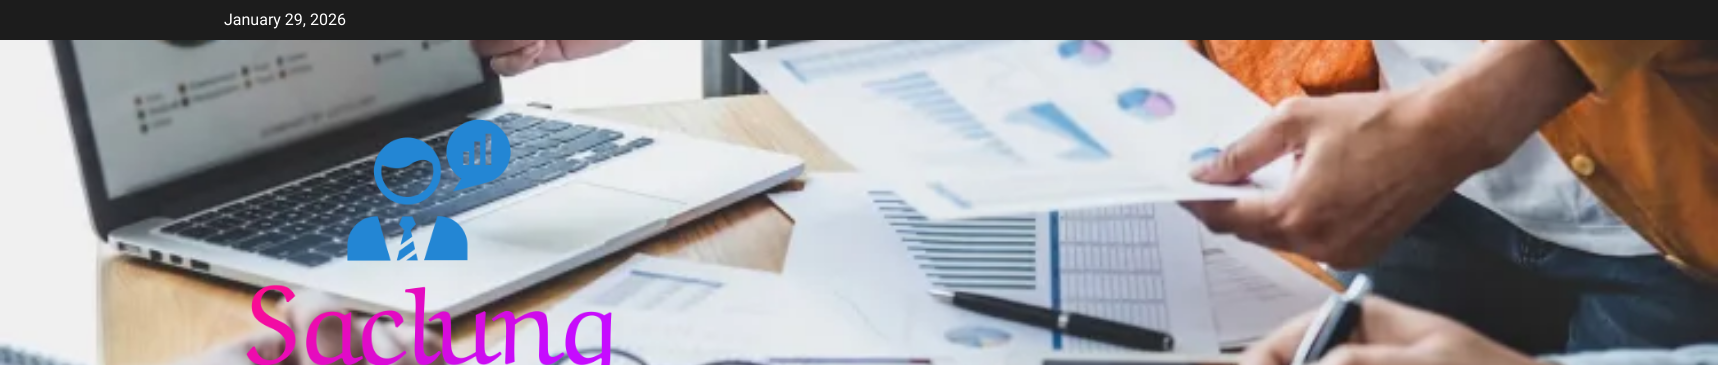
import math
import cairo


def use_color(cr, r, g, b):
  cr.set_source_rgb(r / 255, g / 255, b / 255)

def text(cr, x, y, s, family, size, color, bold=False, italic=False):
  cr.select_font_face(family, cairo.FONT_SLANT_ITALIC if italic else cairo.FONT_SLANT_NORMAL, cairo.FONT_WEIGHT_BOLD if bold else cairo.FONT_WEIGHT_NORMAL)
  cr.set_font_size(size)
  use_color(cr, *color)
  cr.move_to(x, y)
  cr.show_text(s)

def picture(cr, path, x, y, w, h):
  cr.save()
  cr.set_source_surface(cairo.ImageSurface.create_from_png(path), x, y)
  cr.rectangle(x, y, w, h)
  cr.fill()
  cr.restore()

def draw(cr):
  use_color(cr, 28, 28, 28)
  cr.paint()
  picture(cr, "img_01.png", 0, 40, 1718, 325)
  picture(cr, "img_02.png", 246, 119, 366, 246)
  text(cr, 224, 25, "January 29, 2026", "Roboto", 16, (255, 255, 255))


surface = cairo.ImageSurface(cairo.FORMAT_RGB24, 1718, 365)
cr = cairo.Context(surface)
options = cairo.FontOptions()
options.set_hint_metrics(cairo.HINT_METRICS_OFF)
options.set_hint_style(cairo.HINT_STYLE_NONE)
cr.set_font_options(options)
cr.set_miter_limit(4)
draw(cr)
surface.write_to_png("out.png")
